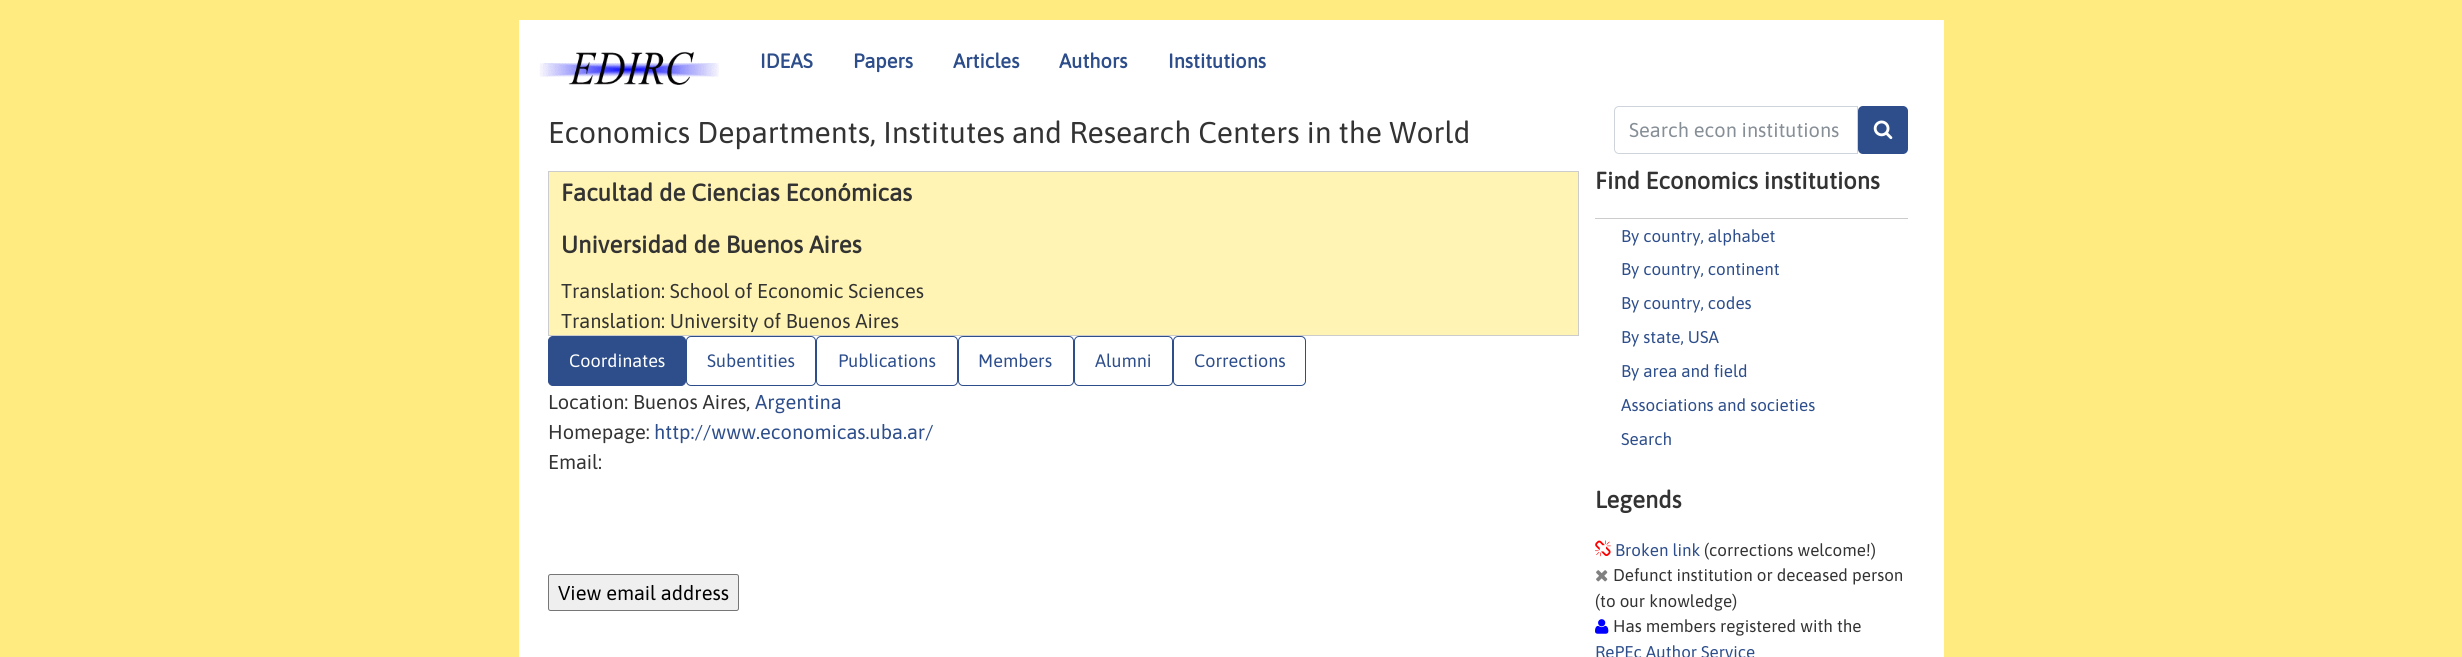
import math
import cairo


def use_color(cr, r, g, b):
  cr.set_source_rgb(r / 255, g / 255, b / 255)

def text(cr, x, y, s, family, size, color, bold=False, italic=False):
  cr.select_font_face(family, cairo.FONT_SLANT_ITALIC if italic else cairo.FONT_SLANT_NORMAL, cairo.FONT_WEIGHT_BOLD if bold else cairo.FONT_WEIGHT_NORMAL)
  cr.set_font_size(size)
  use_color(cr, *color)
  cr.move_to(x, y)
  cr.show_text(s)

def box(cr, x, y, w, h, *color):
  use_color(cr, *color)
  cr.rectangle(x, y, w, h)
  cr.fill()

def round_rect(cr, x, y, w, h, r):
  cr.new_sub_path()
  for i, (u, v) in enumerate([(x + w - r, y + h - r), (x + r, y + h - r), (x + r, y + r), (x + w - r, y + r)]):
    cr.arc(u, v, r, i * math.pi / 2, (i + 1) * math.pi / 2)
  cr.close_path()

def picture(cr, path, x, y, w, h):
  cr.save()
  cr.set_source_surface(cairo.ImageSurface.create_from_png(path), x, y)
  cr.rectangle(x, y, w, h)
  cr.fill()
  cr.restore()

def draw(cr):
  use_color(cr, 255, 235, 128)
  cr.paint()
  box(cr, 519, 20, 1425, 637, 255, 255, 255)
  picture(cr, "img_01.png", 539, 51, 180, 34)
  use_color(cr, 255, 244, 179)
  cr.rectangle(548.5, 171.5, 1030, 164)
  cr.fill_preserve()
  use_color(cr, 204, 204, 204)
  cr.set_line_width(1)
  cr.stroke()
  use_color(cr, 45, 78, 139)
  round_rect(cr, 548.5, 336.5, 137, 49, 4.5)
  cr.fill_preserve()
  cr.stroke()
  round_rect(cr, 686.5, 336.5, 129, 49, 4.5)
  cr.stroke()
  round_rect(cr, 816.5, 336.5, 141, 49, 4.5)
  cr.stroke()
  round_rect(cr, 958.5, 336.5, 115, 49, 4.5)
  cr.stroke()
  round_rect(cr, 1074.5, 336.5, 98, 49, 4.5)
  cr.stroke()
  round_rect(cr, 1173.5, 336.5, 132, 49, 4.5)
  cr.stroke()
  use_color(cr, 239, 239, 239)
  round_rect(cr, 548.5, 574.5, 190, 36, 2)
  cr.fill_preserve()
  use_color(cr, 118, 118, 118)
  cr.stroke()
  cr.new_path()
  cr.move_to(1619, 106.5)
  cr.line_to(1857.5, 106.5)
  cr.line_to(1857.5, 153.5)
  cr.line_to(1619, 153.5)
  cr.curve_to(1616.5, 153.5, 1614.5, 151.5, 1614.5, 149)
  cr.line_to(1614.5, 111)
  cr.curve_to(1614.5, 108.5, 1616.5, 106.5, 1619, 106.5)
  cr.close_path()
  use_color(cr, 206, 212, 218)
  cr.stroke()
  use_color(cr, 45, 78, 139)
  round_rect(cr, 1858, 106, 50, 48, 5)
  cr.fill()
  picture(cr, "img_02.png", 1873, 120, 20, 20)
  box(cr, 1595, 218, 313, 1, 204, 204, 204)
  picture(cr, "img_03.png", 1595, 540, 16, 17)
  picture(cr, "img_04.png", 1596, 570, 12, 12)
  picture(cr, "img_05.png", 1595, 619, 14, 15)
  text(cr, 760, 68, "IDEAS", "Asap", 20, (45, 78, 139), bold=True)
  text(cr, 853, 68, "Papers", "Asap", 20, (45, 78, 139), bold=True)
  text(cr, 953, 68, "Articles", "Asap", 20, (45, 78, 139), bold=True)
  text(cr, 1059, 68, "Authors", "Asap", 20, (45, 78, 139), bold=True)
  text(cr, 1168, 68, "Institutions", "Asap", 20, (45, 78, 139), bold=True)
  text(cr, 548, 143, "Economics Departments, Institutes and Research Centers in the World", "Asap", 30, (51, 51, 51))
  text(cr, 561, 201, "Facultad de Ciencias Económicas", "Asap", 24, (51, 51, 51), bold=True)
  text(cr, 561, 253, "Universidad de Buenos Aires", "Asap", 24, (51, 51, 51), bold=True)
  text(cr, 561, 298, "Translation: School of Economic Sciences", "Asap", 20, (51, 51, 51))
  text(cr, 561, 328, "Translation: University of Buenos Aires", "Asap", 20, (51, 51, 51))
  text(cr, 569, 367, "Coordinates", "Asap", 18, (255, 255, 255))
  text(cr, 707, 367, "Subentities", "Asap", 18, (45, 78, 139))
  text(cr, 838, 367, "Publications", "Asap", 18, (45, 78, 139))
  text(cr, 978, 367, "Members", "Asap", 18, (45, 78, 139))
  text(cr, 1095, 367, "Alumni", "Asap", 18, (45, 78, 139))
  text(cr, 1194, 367, "Corrections", "Asap", 18, (45, 78, 139))
  text(cr, 548, 409, "Location: Buenos Aires,", "Asap", 20, (51, 51, 51))
  text(cr, 755, 409, "Argentina", "Asap", 20, (45, 78, 139))
  text(cr, 548, 439, "Homepage:", "Asap", 20, (51, 51, 51))
  text(cr, 654, 439, "http://www.economicas.uba.ar/", "Asap", 20, (45, 78, 139))
  text(cr, 548, 469, "Email:", "Asap", 20, (51, 51, 51))
  text(cr, 558, 600, "View email address", "Asap", 20, (0, 0, 0))
  text(cr, 1629, 137, "Search econ institutions", "Asap", 20, (134, 142, 150))
  text(cr, 1595, 189, "Find Economics institutions", "Asap", 23.75, (51, 51, 51), bold=True)
  text(cr, 1621, 242, "By country, alphabet", "Asap", 17, (45, 78, 139))
  text(cr, 1621, 275, "By country, continent", "Asap", 17, (45, 78, 139))
  text(cr, 1621, 309, "By country, codes", "Asap", 17, (45, 78, 139))
  text(cr, 1621, 343, "By state, USA", "Asap", 17, (45, 78, 139))
  text(cr, 1621, 377, "By area and field", "Asap", 17, (45, 78, 139))
  text(cr, 1621, 411, "Associations and societies", "Asap", 17, (45, 78, 139))
  text(cr, 1621, 445, "Search", "Asap", 17, (45, 78, 139))
  text(cr, 1595, 508, "Legends", "Asap", 23.75, (51, 51, 51), bold=True)
  text(cr, 1615, 556, "Broken link", "Asap", 17, (45, 78, 139))
  text(cr, 1704, 556, "(corrections welcome!)", "Asap", 17, (51, 51, 51))
  text(cr, 1613, 581, "Defunct institution or deceased person", "Asap", 17, (51, 51, 51))
  text(cr, 1595, 607, "(to our knowledge)", "Asap", 17, (51, 51, 51))
  text(cr, 1613, 632, "Has members registered with the", "Asap", 17, (51, 51, 51))
  text(cr, 1595, 658, "RePEc Author Service", "Asap", 17, (45, 78, 139))


surface = cairo.ImageSurface(cairo.FORMAT_RGB24, 2462, 657)
cr = cairo.Context(surface)
options = cairo.FontOptions()
options.set_hint_metrics(cairo.HINT_METRICS_OFF)
options.set_hint_style(cairo.HINT_STYLE_NONE)
cr.set_font_options(options)
cr.set_miter_limit(4)
draw(cr)
surface.write_to_png("out.png")
